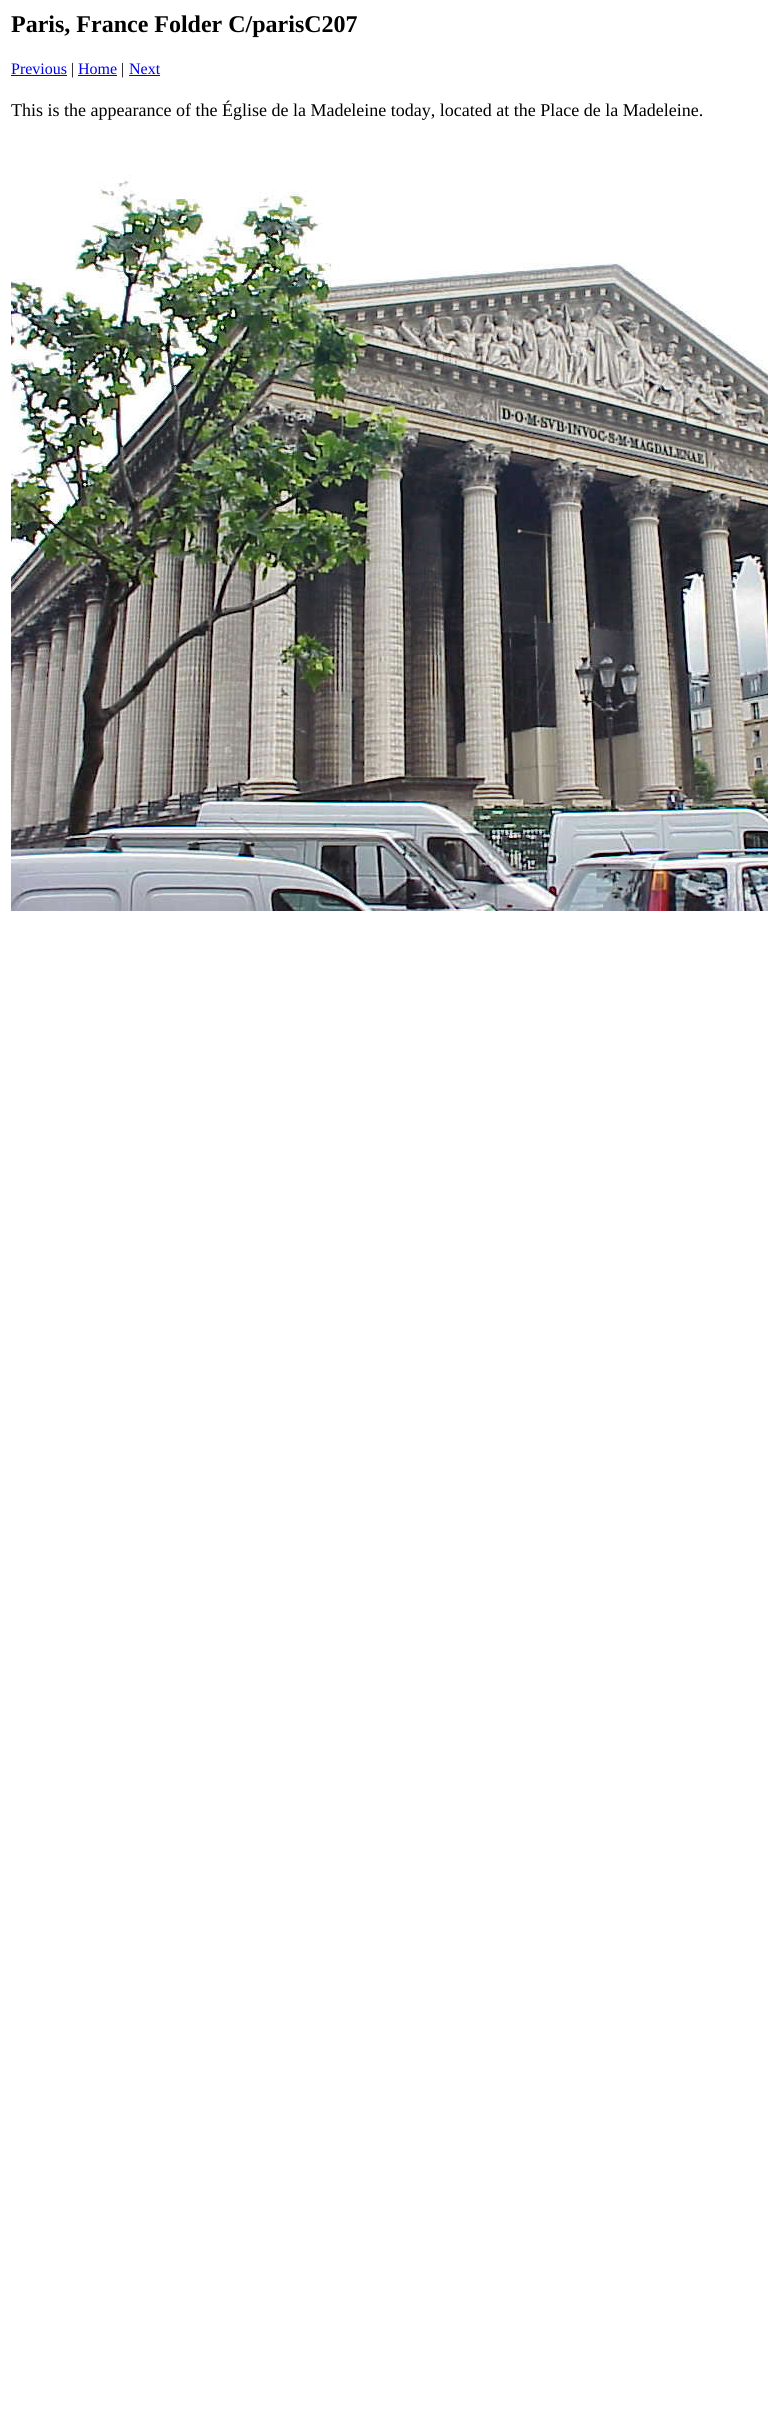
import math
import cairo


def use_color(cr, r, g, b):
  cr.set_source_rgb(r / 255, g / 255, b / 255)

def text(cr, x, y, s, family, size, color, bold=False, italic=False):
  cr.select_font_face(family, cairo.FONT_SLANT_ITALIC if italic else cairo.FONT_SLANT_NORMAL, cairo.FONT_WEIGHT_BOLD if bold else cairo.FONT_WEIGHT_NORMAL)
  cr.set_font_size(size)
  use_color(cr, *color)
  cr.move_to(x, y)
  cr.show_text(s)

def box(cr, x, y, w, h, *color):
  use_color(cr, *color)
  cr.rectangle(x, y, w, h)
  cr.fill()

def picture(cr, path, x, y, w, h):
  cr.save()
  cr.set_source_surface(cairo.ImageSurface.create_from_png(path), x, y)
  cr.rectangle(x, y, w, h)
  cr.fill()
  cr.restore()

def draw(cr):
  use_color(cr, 255, 255, 255)
  cr.paint()
  box(cr, 11, 75, 56, 1, 0, 0, 238)
  box(cr, 78, 75, 39, 1, 0, 0, 238)
  box(cr, 129, 75, 31, 1, 0, 0, 238)
  picture(cr, "img_01.png", 11, 175, 757, 736)
  text(cr, 11, 32, "Paris, France Folder C/parisC207", "Liberation Serif", 24, (0, 0, 0), bold=True)
  text(cr, 11, 74, "Previous", "Liberation Serif", 16, (0, 0, 238))
  text(cr, 71, 74, "|", "Liberation Serif", 16, (0, 0, 0))
  text(cr, 78, 74, "Home", "Liberation Serif", 16, (0, 0, 238))
  text(cr, 121, 74, "|", "Liberation Serif", 16, (0, 0, 0))
  text(cr, 129, 74, "Next", "Liberation Serif", 16, (0, 0, 238))
  text(cr, 11, 116, "This is the appearance of the Église de la Madeleine today, located at the Place de la Madeleine.", "Liberation Serif", 18, (0, 0, 0))


surface = cairo.ImageSurface(cairo.FORMAT_RGB24, 768, 2416)
cr = cairo.Context(surface)
options = cairo.FontOptions()
options.set_hint_metrics(cairo.HINT_METRICS_OFF)
options.set_hint_style(cairo.HINT_STYLE_NONE)
cr.set_font_options(options)
cr.set_miter_limit(4)
draw(cr)
surface.write_to_png("out.png")
